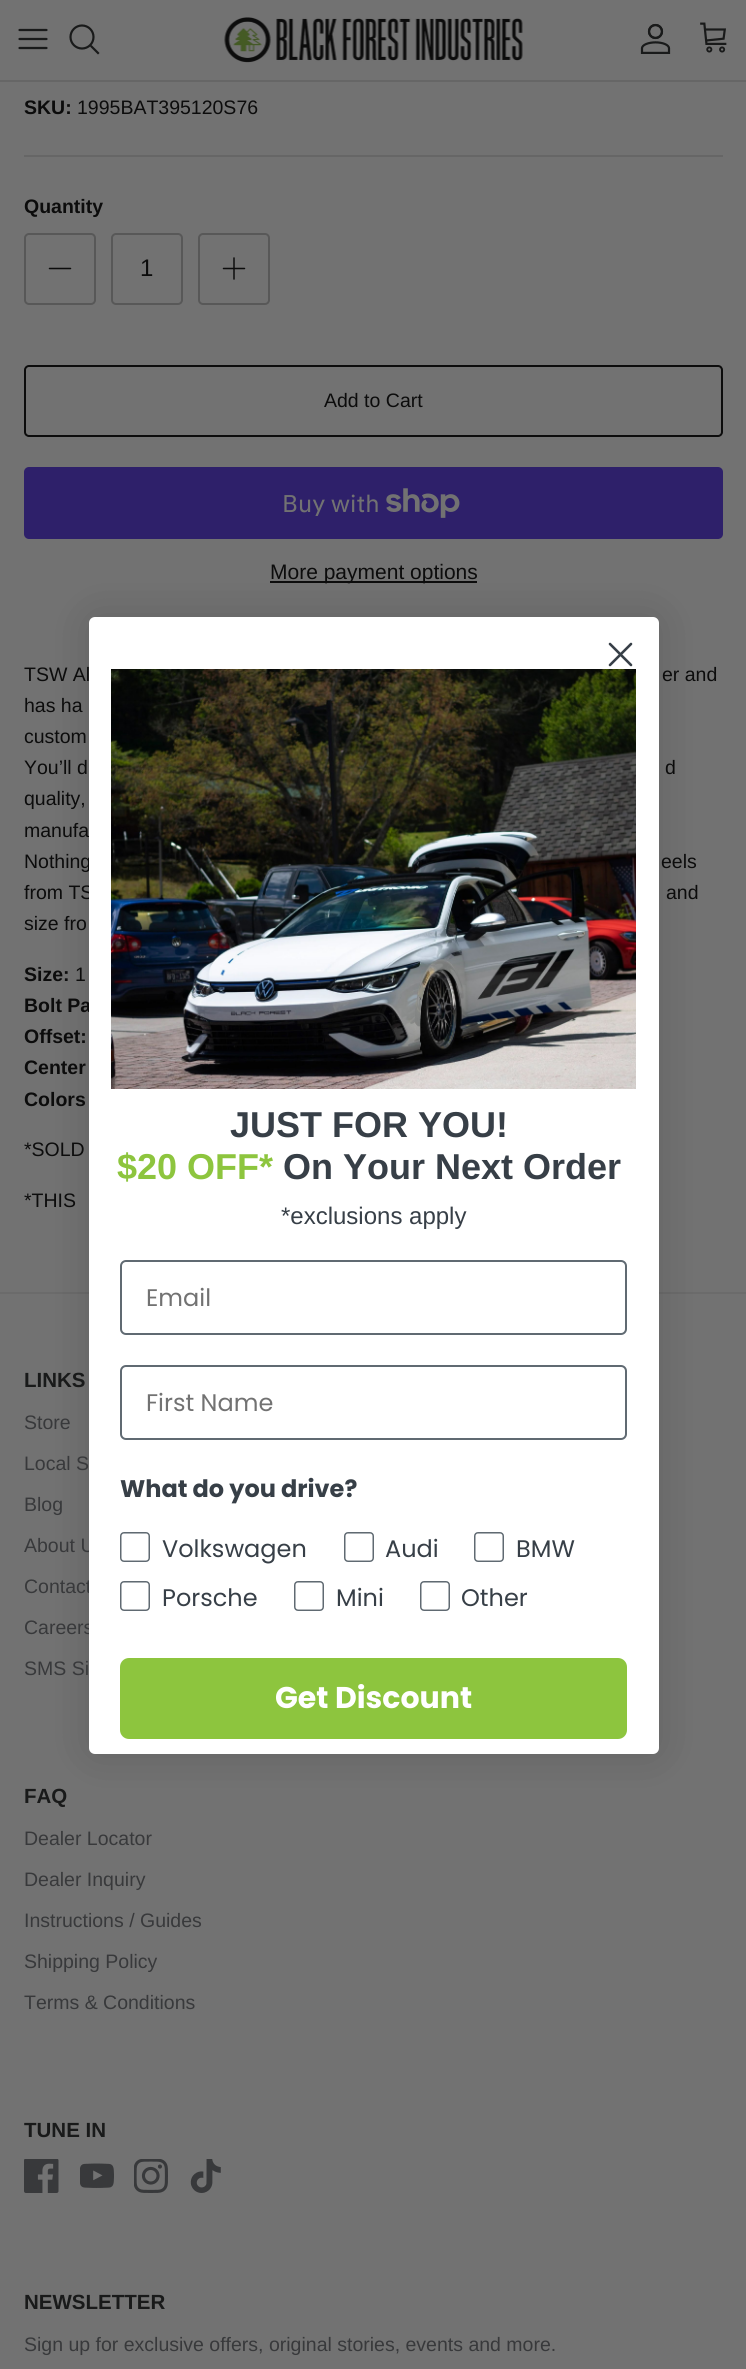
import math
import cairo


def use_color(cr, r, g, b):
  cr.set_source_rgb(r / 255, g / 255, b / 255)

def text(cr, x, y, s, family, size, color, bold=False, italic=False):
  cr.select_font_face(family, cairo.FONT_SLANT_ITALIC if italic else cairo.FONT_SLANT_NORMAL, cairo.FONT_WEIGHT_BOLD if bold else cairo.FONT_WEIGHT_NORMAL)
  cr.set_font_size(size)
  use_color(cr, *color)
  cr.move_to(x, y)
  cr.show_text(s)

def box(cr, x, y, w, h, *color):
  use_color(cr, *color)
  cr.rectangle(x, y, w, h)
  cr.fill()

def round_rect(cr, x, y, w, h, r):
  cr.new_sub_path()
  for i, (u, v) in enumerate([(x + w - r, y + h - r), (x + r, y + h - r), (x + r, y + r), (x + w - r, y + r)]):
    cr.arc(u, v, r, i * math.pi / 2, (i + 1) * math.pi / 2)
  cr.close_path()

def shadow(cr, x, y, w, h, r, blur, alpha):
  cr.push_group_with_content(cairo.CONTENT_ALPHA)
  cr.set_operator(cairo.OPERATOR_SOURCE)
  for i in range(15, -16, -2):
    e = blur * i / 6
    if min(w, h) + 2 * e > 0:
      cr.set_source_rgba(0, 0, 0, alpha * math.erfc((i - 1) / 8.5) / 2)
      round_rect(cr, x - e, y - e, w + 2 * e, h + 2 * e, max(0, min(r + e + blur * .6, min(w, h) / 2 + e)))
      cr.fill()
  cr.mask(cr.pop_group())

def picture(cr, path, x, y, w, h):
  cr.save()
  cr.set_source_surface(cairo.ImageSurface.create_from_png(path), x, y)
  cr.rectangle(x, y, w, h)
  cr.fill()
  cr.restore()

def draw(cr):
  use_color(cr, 114, 114, 114)
  cr.paint()
  box(cr, 0, 80, 746, 2, 102, 102, 102)
  cr.new_path()
  cr.move_to(19.5, 39)
  cr.line_to(46.5, 39)
  cr.move_to(19.5, 30)
  cr.line_to(46.5, 30)
  cr.move_to(19.5, 48)
  cr.line_to(46.5, 48)
  use_color(cr, 25, 26, 26)
  cr.set_line_width(2.2)
  cr.set_line_cap(cairo.LINE_CAP_ROUND)
  cr.set_line_join(cairo.LINE_JOIN_ROUND)
  cr.stroke()
  cr.arc(82, 37, 11.5, 0, 2 * math.pi)
  cr.set_line_cap(cairo.LINE_CAP_BUTT)
  cr.set_line_join(cairo.LINE_JOIN_MITER)
  cr.stroke()
  cr.new_path()
  cr.move_to(91.5, 46.5)
  cr.line_to(98, 53)
  cr.set_line_cap(cairo.LINE_CAP_SQUARE)
  cr.stroke()
  picture(cr, "img_01.png", 224, 17, 299, 46)
  picture(cr, "img_02.png", 640, 23, 31, 31)
  picture(cr, "img_03.png", 700, 22, 27, 31)
  box(cr, 24, 155, 699, 2, 102, 102, 102)
  round_rect(cr, 25, 234, 70, 70, 4)
  use_color(cr, 88, 88, 88)
  cr.set_line_width(2)
  cr.set_line_cap(cairo.LINE_CAP_BUTT)
  cr.stroke()
  cr.new_path()
  cr.move_to(49.5, 268.5)
  cr.line_to(70.5, 268.5)
  use_color(cr, 12, 12, 12)
  cr.set_line_width(1.5)
  cr.set_line_cap(cairo.LINE_CAP_ROUND)
  cr.set_line_join(cairo.LINE_JOIN_ROUND)
  cr.stroke()
  round_rect(cr, 112, 234, 70, 70, 4)
  use_color(cr, 88, 88, 88)
  cr.set_line_width(2)
  cr.set_line_cap(cairo.LINE_CAP_BUTT)
  cr.set_line_join(cairo.LINE_JOIN_MITER)
  cr.stroke()
  round_rect(cr, 199, 234, 70, 70, 4)
  cr.stroke()
  cr.new_path()
  cr.move_to(234, 258)
  cr.line_to(234, 279)
  cr.move_to(223.5, 268.5)
  cr.line_to(244.5, 268.5)
  use_color(cr, 12, 12, 12)
  cr.set_line_width(1.5)
  cr.set_line_cap(cairo.LINE_CAP_ROUND)
  cr.set_line_join(cairo.LINE_JOIN_ROUND)
  cr.stroke()
  round_rect(cr, 25, 366, 697, 70, 4)
  cr.set_line_width(2)
  cr.set_line_cap(cairo.LINE_CAP_BUTT)
  cr.set_line_join(cairo.LINE_JOIN_MITER)
  cr.stroke()
  use_color(cr, 46, 32, 106)
  round_rect(cr, 24, 467, 699, 72, 5)
  cr.fill()
  picture(cr, "img_04.png", 386, 488, 74, 30)
  box(cr, 270, 581, 207, 2, 12, 12, 12)
  box(cr, 0, 1292, 746, 2, 107, 107, 107)
  use_color(cr, 0, 0, 0)
  shadow(cr, 89, 617, 570, 1137, 6, 22.5, 0.15)
  picture(cr, "img_06.png", 24, 2159, 35, 34)
  picture(cr, "img_07.png", 80, 2163, 34, 25)
  picture(cr, "img_08.png", 134, 2159, 34, 34)
  picture(cr, "img_09.png", 190, 2159, 31, 34)
  text(cr, 24, 114, "SKU:", "Liberation Sans", 19.5, (12, 12, 12), bold=True)
  text(cr, 77, 114, "1995BAT395120S76", "Liberation Sans", 19.5, (12, 12, 12))
  text(cr, 24, 213, "Quantity", "Liberation Sans", 19.5, (12, 12, 12), bold=True)
  text(cr, 140, 276, "1", "Liberation Sans", 24, (12, 12, 12))
  text(cr, 324, 407, "Add to Cart", "Liberation Sans", 19.5, (12, 12, 12))
  text(cr, 282, 512, "Buy with", "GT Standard", 24, (114, 114, 114))
  text(cr, 270, 579, "More payment options", "Liberation Sans", 21, (12, 12, 12))
  text(cr, 24, 681, "TSW Al", "Liberation Sans", 19.5, (12, 12, 12))
  text(cr, 662, 681, "er and", "Liberation Sans", 19.5, (12, 12, 12))
  text(cr, 24, 712, "has ha", "Liberation Sans", 19.5, (12, 12, 12))
  text(cr, 24, 743, "custom", "Liberation Sans", 19.5, (12, 12, 12))
  text(cr, 24, 774, "You’ll d", "Liberation Sans", 19.5, (12, 12, 12))
  text(cr, 665, 774, "d", "Liberation Sans", 19.5, (12, 12, 12))
  text(cr, 24, 805, "quality,", "Liberation Sans", 19.5, (12, 12, 12))
  text(cr, 24, 837, "manufa", "Liberation Sans", 19.5, (12, 12, 12))
  text(cr, 24, 868, "Nothing", "Liberation Sans", 19.5, (12, 12, 12))
  text(cr, 661, 868, "eels", "Liberation Sans", 19.5, (12, 12, 12))
  text(cr, 24, 899, "from TS", "Liberation Sans", 19.5, (12, 12, 12))
  text(cr, 666, 899, "and", "Liberation Sans", 19.5, (12, 12, 12))
  text(cr, 24, 930, "size fro", "Liberation Sans", 19.5, (12, 12, 12))
  text(cr, 24, 981, "Size:", "Liberation Sans", 19.5, (12, 12, 12), bold=True)
  text(cr, 75, 981, "1", "Liberation Sans", 19.5, (12, 12, 12))
  text(cr, 24, 1012, "Bolt Pa", "Liberation Sans", 19.5, (12, 12, 12), bold=True)
  text(cr, 24, 1043, "Offset:", "Liberation Sans", 19.5, (12, 12, 12), bold=True)
  text(cr, 24, 1074, "Center", "Liberation Sans", 19.5, (12, 12, 12), bold=True)
  text(cr, 24, 1106, "Colors", "Liberation Sans", 19.5, (12, 12, 12), bold=True)
  text(cr, 24, 1156, "*SOLD", "Liberation Sans", 19.5, (12, 12, 12))
  text(cr, 24, 1207, "*THIS", "Liberation Sans", 19.5, (12, 12, 12))
  text(cr, 24, 1387, "LINKS", "Liberation Sans", 20.5, (25, 26, 26), bold=True)
  text(cr, 24, 1429, "Store", "Liberation Sans", 19.5, (56, 57, 59))
  text(cr, 24, 1470, "Local S", "Liberation Sans", 19.5, (56, 57, 59))
  text(cr, 24, 1511, "Blog", "Liberation Sans", 19.5, (56, 57, 59))
  text(cr, 24, 1552, "About U", "Liberation Sans", 19.5, (56, 57, 59))
  text(cr, 24, 1593, "Contact", "Liberation Sans", 19.5, (56, 57, 59))
  text(cr, 24, 1634, "Careers", "Liberation Sans", 19.5, (56, 57, 59))
  use_color(cr, 255, 255, 255)
  round_rect(cr, 89, 617, 570, 1137, 6)
  cr.fill()
  cr.new_path()
  cr.move_to(610, 644)
  cr.line_to(631, 665)
  cr.move_to(610, 665)
  cr.line_to(631, 644)
  cr.close_path()
  use_color(cr, 55, 63, 71)
  cr.set_line_width(2.6)
  cr.set_line_cap(cairo.LINE_CAP_ROUND)
  cr.set_line_join(cairo.LINE_JOIN_ROUND)
  cr.stroke()
  use_color(cr, 141, 197, 62)
  round_rect(cr, 120, 1658, 507, 81, 9)
  cr.fill()
  text(cr, 275, 1708, "Get Discount", "Poppins", 30, (255, 255, 255), bold=True)
  text(cr, 461, 1606, "Other", "Poppins", 24, (55, 63, 71))
  text(cr, 336, 1606, "Mini", "Poppins", 24, (55, 63, 71))
  text(cr, 162, 1606, "Porsche", "Poppins", 24, (55, 63, 71))
  text(cr, 516, 1557, "BMW", "Poppins", 24, (55, 63, 71))
  text(cr, 385, 1557, "Audi", "Poppins", 24, (55, 63, 71))
  text(cr, 162, 1557, "Volkswagen", "Poppins", 24, (55, 63, 71))
  round_rect(cr, 420.75, 1581.75, 28.5, 28.5, 3.25)
  use_color(cr, 96, 106, 114)
  cr.set_line_width(1.5)
  cr.set_line_cap(cairo.LINE_CAP_BUTT)
  cr.set_line_join(cairo.LINE_JOIN_MITER)
  cr.stroke()
  round_rect(cr, 294.75, 1581.75, 28.5, 28.5, 3.25)
  cr.stroke()
  round_rect(cr, 120.75, 1581.75, 28.5, 28.5, 3.25)
  cr.stroke()
  round_rect(cr, 474.75, 1532.75, 28.5, 28.5, 3.25)
  cr.stroke()
  round_rect(cr, 344.75, 1532.75, 28.5, 28.5, 3.25)
  cr.stroke()
  round_rect(cr, 120.75, 1532.75, 28.5, 28.5, 3.25)
  cr.stroke()
  text(cr, 120, 1497, "What do you drive?", "Poppins", 24, (55, 63, 71), bold=True)
  round_rect(cr, 121, 1366, 505, 73, 5)
  use_color(cr, 96, 106, 114)
  cr.set_line_width(2)
  cr.stroke()
  text(cr, 146, 1411, "First Name", "Poppins", 24, (114, 114, 114))
  round_rect(cr, 121, 1261, 505, 73, 5)
  use_color(cr, 96, 106, 114)
  cr.stroke()
  text(cr, 146, 1306, "Email", "Poppins", 24, (114, 114, 114))
  text(cr, 281, 1224, "*exclusions apply", "Liberation Sans", 24, (55, 63, 71))
  text(cr, 283, 1179, "On Your Next Order", "Liberation Sans", 36, (55, 63, 71), bold=True)
  text(cr, 117, 1179, "$20 OFF*", "Liberation Sans", 36, (141, 197, 62), bold=True)
  text(cr, 230, 1137, "JUST FOR YOU!", "Liberation Sans", 36, (55, 63, 71), bold=True)
  picture(cr, "img_05.png", 111, 669, 525, 420)
  text(cr, 24, 1675, "SMS Si", "Liberation Sans", 19.5, (56, 57, 59))
  text(cr, 24, 1803, "FAQ", "Liberation Sans", 20.5, (25, 26, 26), bold=True)
  text(cr, 24, 1845, "Dealer Locator", "Liberation Sans", 19.5, (56, 57, 59))
  text(cr, 24, 1886, "Dealer Inquiry", "Liberation Sans", 19.5, (56, 57, 59))
  text(cr, 24, 1927, "Instructions / Guides", "Liberation Sans", 19.5, (56, 57, 59))
  text(cr, 24, 1968, "Shipping Policy", "Liberation Sans", 19.5, (56, 57, 59))
  text(cr, 24, 2009, "Terms & Conditions", "Liberation Sans", 19.5, (56, 57, 59))
  text(cr, 24, 2137, "TUNE IN", "Liberation Sans", 20.5, (25, 26, 26), bold=True)
  text(cr, 24, 2309, "NEWSLETTER", "Liberation Sans", 20.5, (25, 26, 26), bold=True)
  text(cr, 24, 2351, "Sign up for exclusive offers, original stories, events and more.", "Liberation Sans", 19.5, (56, 57, 59))


surface = cairo.ImageSurface(cairo.FORMAT_RGB24, 746, 2369)
cr = cairo.Context(surface)
options = cairo.FontOptions()
options.set_hint_metrics(cairo.HINT_METRICS_OFF)
options.set_hint_style(cairo.HINT_STYLE_NONE)
cr.set_font_options(options)
cr.set_miter_limit(4)
draw(cr)
surface.write_to_png("out.png")
